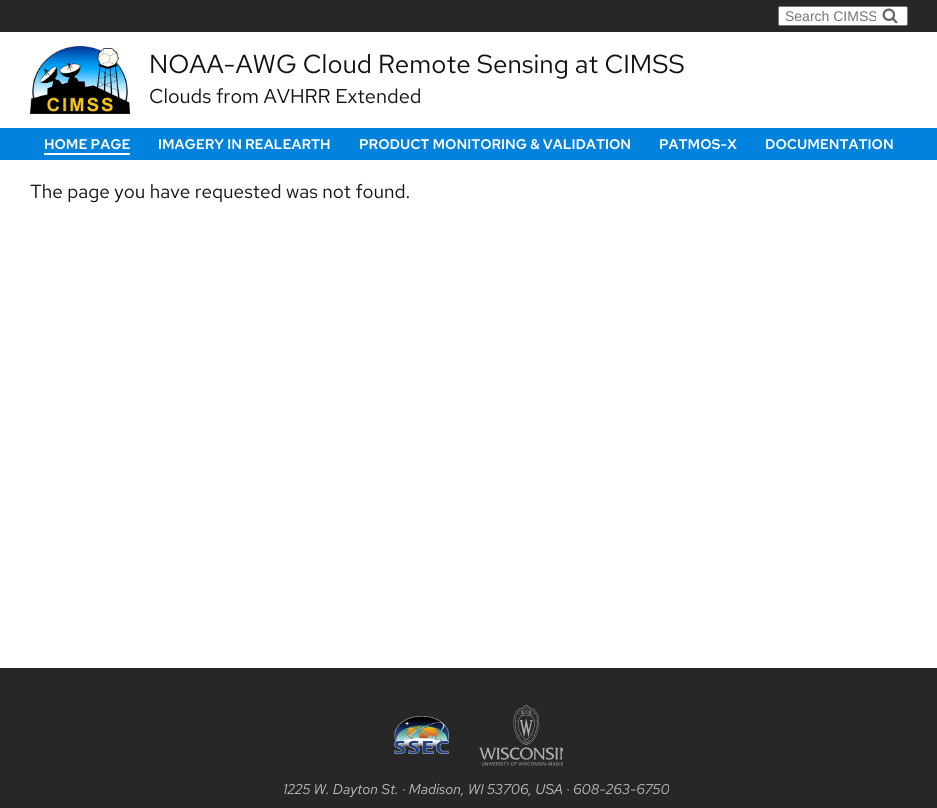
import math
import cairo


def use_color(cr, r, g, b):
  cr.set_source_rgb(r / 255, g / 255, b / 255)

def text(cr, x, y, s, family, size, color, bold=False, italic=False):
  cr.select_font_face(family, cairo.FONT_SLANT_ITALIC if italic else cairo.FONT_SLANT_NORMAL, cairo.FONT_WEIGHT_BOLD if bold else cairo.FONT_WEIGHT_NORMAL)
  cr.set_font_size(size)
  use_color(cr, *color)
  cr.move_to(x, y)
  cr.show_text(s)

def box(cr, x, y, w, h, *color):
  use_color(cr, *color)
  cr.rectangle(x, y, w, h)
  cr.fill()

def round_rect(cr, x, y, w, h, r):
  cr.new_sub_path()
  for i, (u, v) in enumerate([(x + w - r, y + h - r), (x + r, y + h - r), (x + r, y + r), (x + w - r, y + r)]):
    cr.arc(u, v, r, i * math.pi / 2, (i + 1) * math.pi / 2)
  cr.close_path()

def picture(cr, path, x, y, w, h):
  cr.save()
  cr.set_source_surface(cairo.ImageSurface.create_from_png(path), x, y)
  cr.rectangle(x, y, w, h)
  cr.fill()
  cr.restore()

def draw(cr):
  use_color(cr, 255, 255, 255)
  cr.paint()
  box(cr, 0, 0, 937, 32, 39, 39, 39)
  use_color(cr, 255, 255, 255)
  round_rect(cr, 778.5, 6.5, 129, 19, 1.5)
  cr.fill_preserve()
  use_color(cr, 118, 118, 118)
  cr.set_line_width(1)
  cr.stroke()
  picture(cr, "img_01.png", 882, 8, 16, 16)
  picture(cr, "img_02.png", 30, 46, 100, 68)
  box(cr, 0, 128, 937, 32, 0, 130, 221)
  box(cr, 44, 153, 86, 2, 255, 255, 255)
  box(cr, 0, 668, 937, 140, 39, 39, 39)
  picture(cr, "img_03.png", 394, 716, 55, 38)
  picture(cr, "img_04.png", 479, 704, 84, 62)
  cr.save()
  cr.rectangle(785, 8, 91, 16)
  cr.clip()
  text(cr, 785, 21, "Search CIMSS", "Liberation Sans", 14, (117, 117, 117))
  cr.restore()
  text(cr, 149, 73, "NOAA-AWG Cloud Remote Sensing at CIMSS", "Red Hat Text", 26, (17, 17, 17))
  text(cr, 149, 103, "Clouds from AVHRR Extended", "Red Hat Text", 20, (17, 17, 17))
  text(cr, 44, 149, "HOME PAGE", "Red Hat Text SemiBold", 14, (255, 255, 255))
  text(cr, 158, 149, "IMAGERY IN REALEARTH", "Red Hat Text SemiBold", 14, (255, 255, 255))
  text(cr, 359, 149, "PRODUCT MONITORING & VALIDATION", "Red Hat Text SemiBold", 14, (255, 255, 255))
  text(cr, 659, 149, "PATMOS-X", "Red Hat Text SemiBold", 14, (255, 255, 255))
  text(cr, 765, 149, "DOCUMENTATION", "Red Hat Text SemiBold", 14, (255, 255, 255))
  text(cr, 30, 198, "The page you have requested was not found.", "Red Hat Text", 19, (17, 17, 17))
  text(cr, 283, 794, "1225 W. Dayton St. · Madison, WI 53706, USA · 608-263-6750", "Red Hat Text", 14.1, (191, 191, 191), italic=True)


surface = cairo.ImageSurface(cairo.FORMAT_RGB24, 937, 808)
cr = cairo.Context(surface)
options = cairo.FontOptions()
options.set_hint_metrics(cairo.HINT_METRICS_OFF)
options.set_hint_style(cairo.HINT_STYLE_NONE)
cr.set_font_options(options)
cr.set_miter_limit(4)
draw(cr)
surface.write_to_png("out.png")
